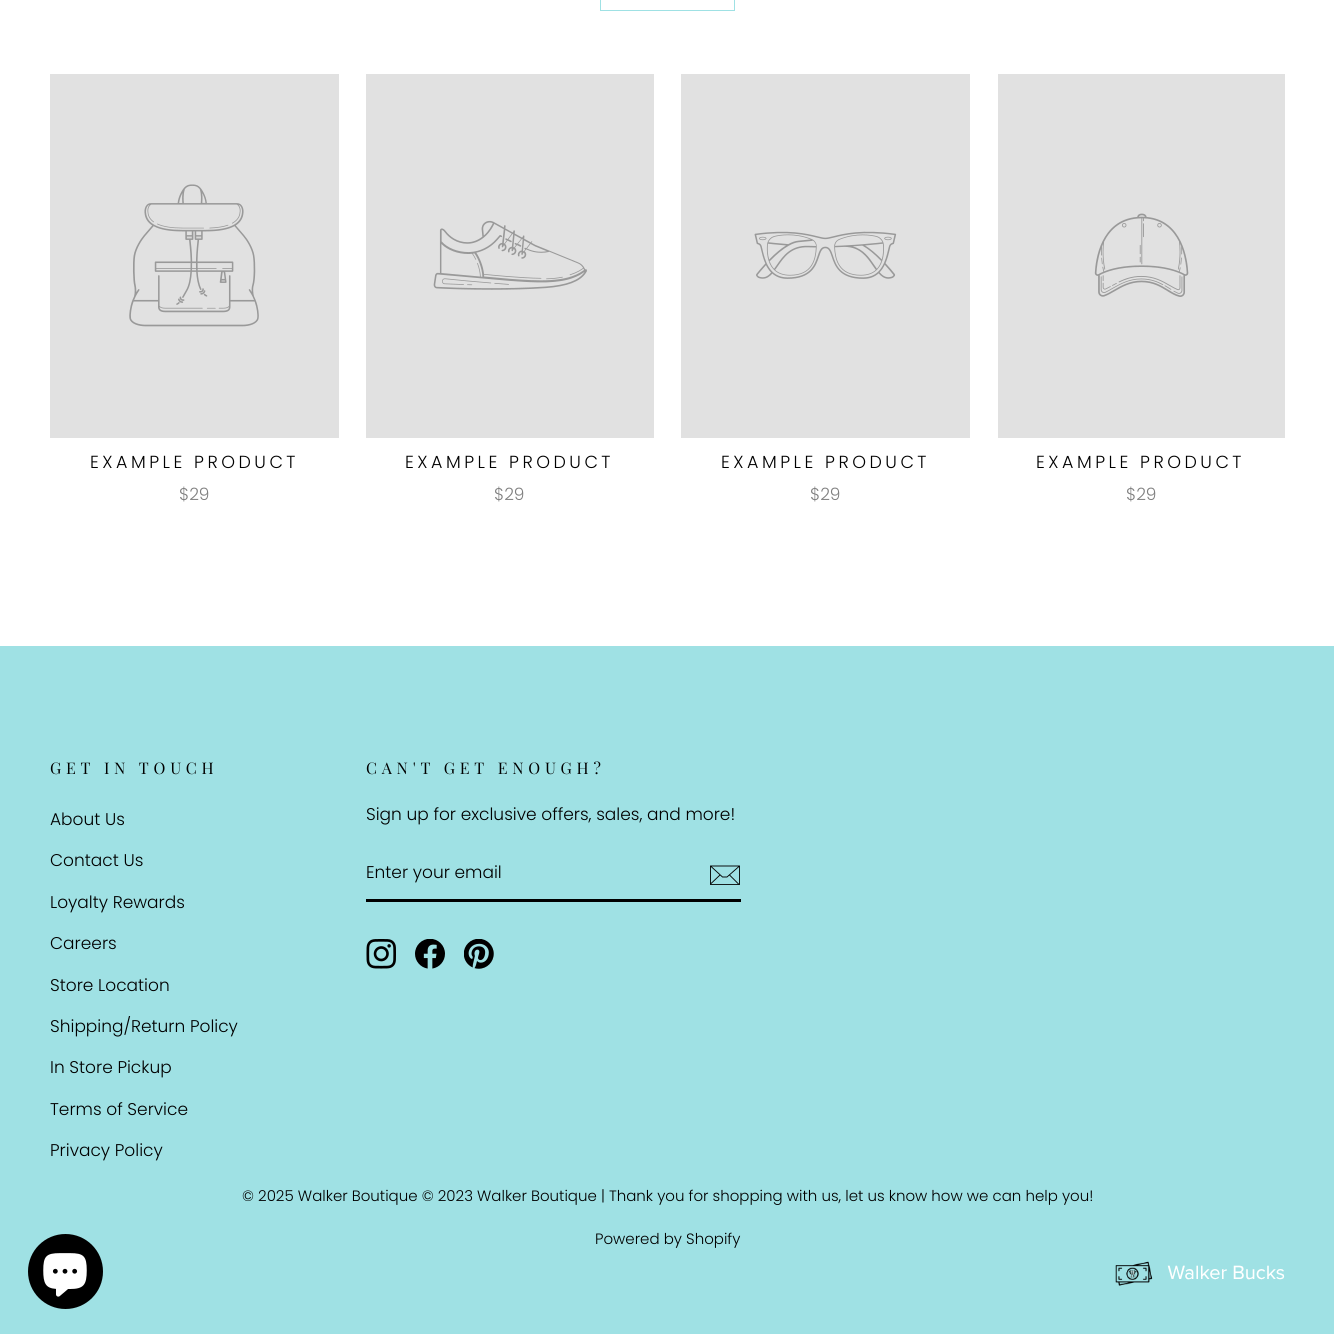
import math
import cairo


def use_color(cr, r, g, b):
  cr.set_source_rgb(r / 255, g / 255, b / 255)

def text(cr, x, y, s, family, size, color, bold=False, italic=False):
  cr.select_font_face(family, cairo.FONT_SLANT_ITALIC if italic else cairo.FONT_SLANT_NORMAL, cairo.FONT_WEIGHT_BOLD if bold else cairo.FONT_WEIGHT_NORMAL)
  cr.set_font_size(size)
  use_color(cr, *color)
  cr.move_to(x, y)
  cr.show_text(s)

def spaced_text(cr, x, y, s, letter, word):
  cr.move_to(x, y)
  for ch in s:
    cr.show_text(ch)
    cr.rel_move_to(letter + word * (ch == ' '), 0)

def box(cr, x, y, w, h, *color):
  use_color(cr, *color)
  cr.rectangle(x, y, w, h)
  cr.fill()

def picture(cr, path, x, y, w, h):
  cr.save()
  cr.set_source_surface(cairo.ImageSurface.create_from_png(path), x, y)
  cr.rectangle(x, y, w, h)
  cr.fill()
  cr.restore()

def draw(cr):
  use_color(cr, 255, 255, 255)
  cr.paint()
  cr.rectangle(600.5, -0.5, 134, 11)
  use_color(cr, 159, 225, 228)
  cr.set_line_width(1)
  cr.stroke()
  box(cr, 50, 74, 289, 364, 225, 225, 225)
  picture(cr, "img_01.png", 129, 184, 130, 143)
  box(cr, 366, 74, 288, 364, 225, 225, 225)
  picture(cr, "img_02.png", 433, 220, 154, 70)
  box(cr, 681, 74, 289, 364, 225, 225, 225)
  picture(cr, "img_03.png", 754, 231, 143, 48)
  box(cr, 998, 74, 287, 364, 225, 225, 225)
  picture(cr, "img_04.png", 1094, 213, 95, 84)
  box(cr, 0, 646, 1334, 688, 159, 225, 228)
  box(cr, 366, 899, 375, 3, 0, 0, 0)
  cr.new_path()
  cr.move_to(739.5, 884.5)
  cr.line_to(710.5, 884.5)
  cr.line_to(710.5, 866)
  cr.line_to(739.5, 866)
  cr.close_path()
  cr.move_to(710.5, 866)
  cr.line_to(722.5, 877)
  cr.line_to(727, 877)
  cr.line_to(739.5, 866)
  cr.move_to(720, 875)
  cr.line_to(710.5, 884)
  cr.move_to(739, 884.5)
  cr.line_to(729.5, 875)
  cr.set_line_width(0.9)
  cr.stroke()
  picture(cr, "img_05.png", 366, 939, 30, 30)
  picture(cr, "img_06.png", 415, 939, 30, 30)
  picture(cr, "img_07.png", 464, 939, 30, 30)
  cr.arc(65.5, 1271.5, 37.5, 0, 2 * math.pi)
  cr.fill()
  picture(cr, "img_08.png", 43, 1253, 44, 44)
  picture(cr, "img_09.png", 1115, 1261, 170, 25)
  cr.select_font_face("Poppins Light")
  cr.set_font_size(17.5)
  spaced_text(cr, 90, 468, "EXAMPLE PRODUCT", 3.5, 0)
  text(cr, 179, 500, "$29", "Poppins Light", 17, (126, 126, 126))
  cr.set_font_size(17.5)
  use_color(cr, 0, 0, 0)
  spaced_text(cr, 405, 468, "EXAMPLE PRODUCT", 3.5, 0)
  text(cr, 494, 500, "$29", "Poppins Light", 17, (126, 126, 126))
  cr.set_font_size(17.5)
  use_color(cr, 0, 0, 0)
  spaced_text(cr, 721, 468, "EXAMPLE PRODUCT", 3.5, 0)
  text(cr, 810, 500, "$29", "Poppins Light", 17, (126, 126, 126))
  cr.set_font_size(17.5)
  use_color(cr, 0, 0, 0)
  spaced_text(cr, 1036, 468, "EXAMPLE PRODUCT", 3.5, 0)
  text(cr, 1126, 500, "$29", "Poppins Light", 17, (126, 126, 126))
  cr.select_font_face("Playfair Display")
  cr.set_font_size(16)
  use_color(cr, 0, 0, 0)
  spaced_text(cr, 50, 774, "GET IN TOUCH", 4.75, 0)
  text(cr, 50, 825, "About Us", "Poppins Light", 17, (0, 0, 0))
  text(cr, 50, 866, "Contact Us", "Poppins Light", 17, (0, 0, 0))
  text(cr, 50, 908, "Loyalty Rewards", "Poppins Light", 17, (0, 0, 0))
  text(cr, 50, 949, "Careers", "Poppins Light", 17, (0, 0, 0))
  text(cr, 50, 991, "Store Location", "Poppins Light", 17, (0, 0, 0))
  text(cr, 50, 1032, "Shipping/Return Policy", "Poppins Light", 17, (0, 0, 0))
  text(cr, 50, 1073, "In Store Pickup", "Poppins Light", 17, (0, 0, 0))
  text(cr, 50, 1115, "Terms of Service", "Poppins Light", 17, (0, 0, 0))
  text(cr, 50, 1156, "Privacy Policy", "Poppins Light", 17, (0, 0, 0))
  cr.select_font_face("Playfair Display")
  cr.set_font_size(16)
  spaced_text(cr, 366, 774, "CAN'T GET ENOUGH?", 4.75, 0)
  text(cr, 366, 820, "Sign up for exclusive offers, sales, and more!", "Poppins Light", 17, (0, 0, 0))
  text(cr, 366, 878, "Enter your email", "Poppins Light", 17, (0, 0, 0))
  text(cr, 242, 1201, "© 2025 Walker Boutique © 2023 Walker Boutique | Thank you for shopping with us, let us know how we can help you!", "Poppins Light", 15, (0, 0, 0))
  text(cr, 595, 1244, "Powered by Shopify", "Poppins Light", 15, (0, 0, 0))


surface = cairo.ImageSurface(cairo.FORMAT_RGB24, 1334, 1334)
cr = cairo.Context(surface)
options = cairo.FontOptions()
options.set_hint_metrics(cairo.HINT_METRICS_OFF)
options.set_hint_style(cairo.HINT_STYLE_NONE)
cr.set_font_options(options)
cr.set_miter_limit(4)
draw(cr)
surface.write_to_png("out.png")
